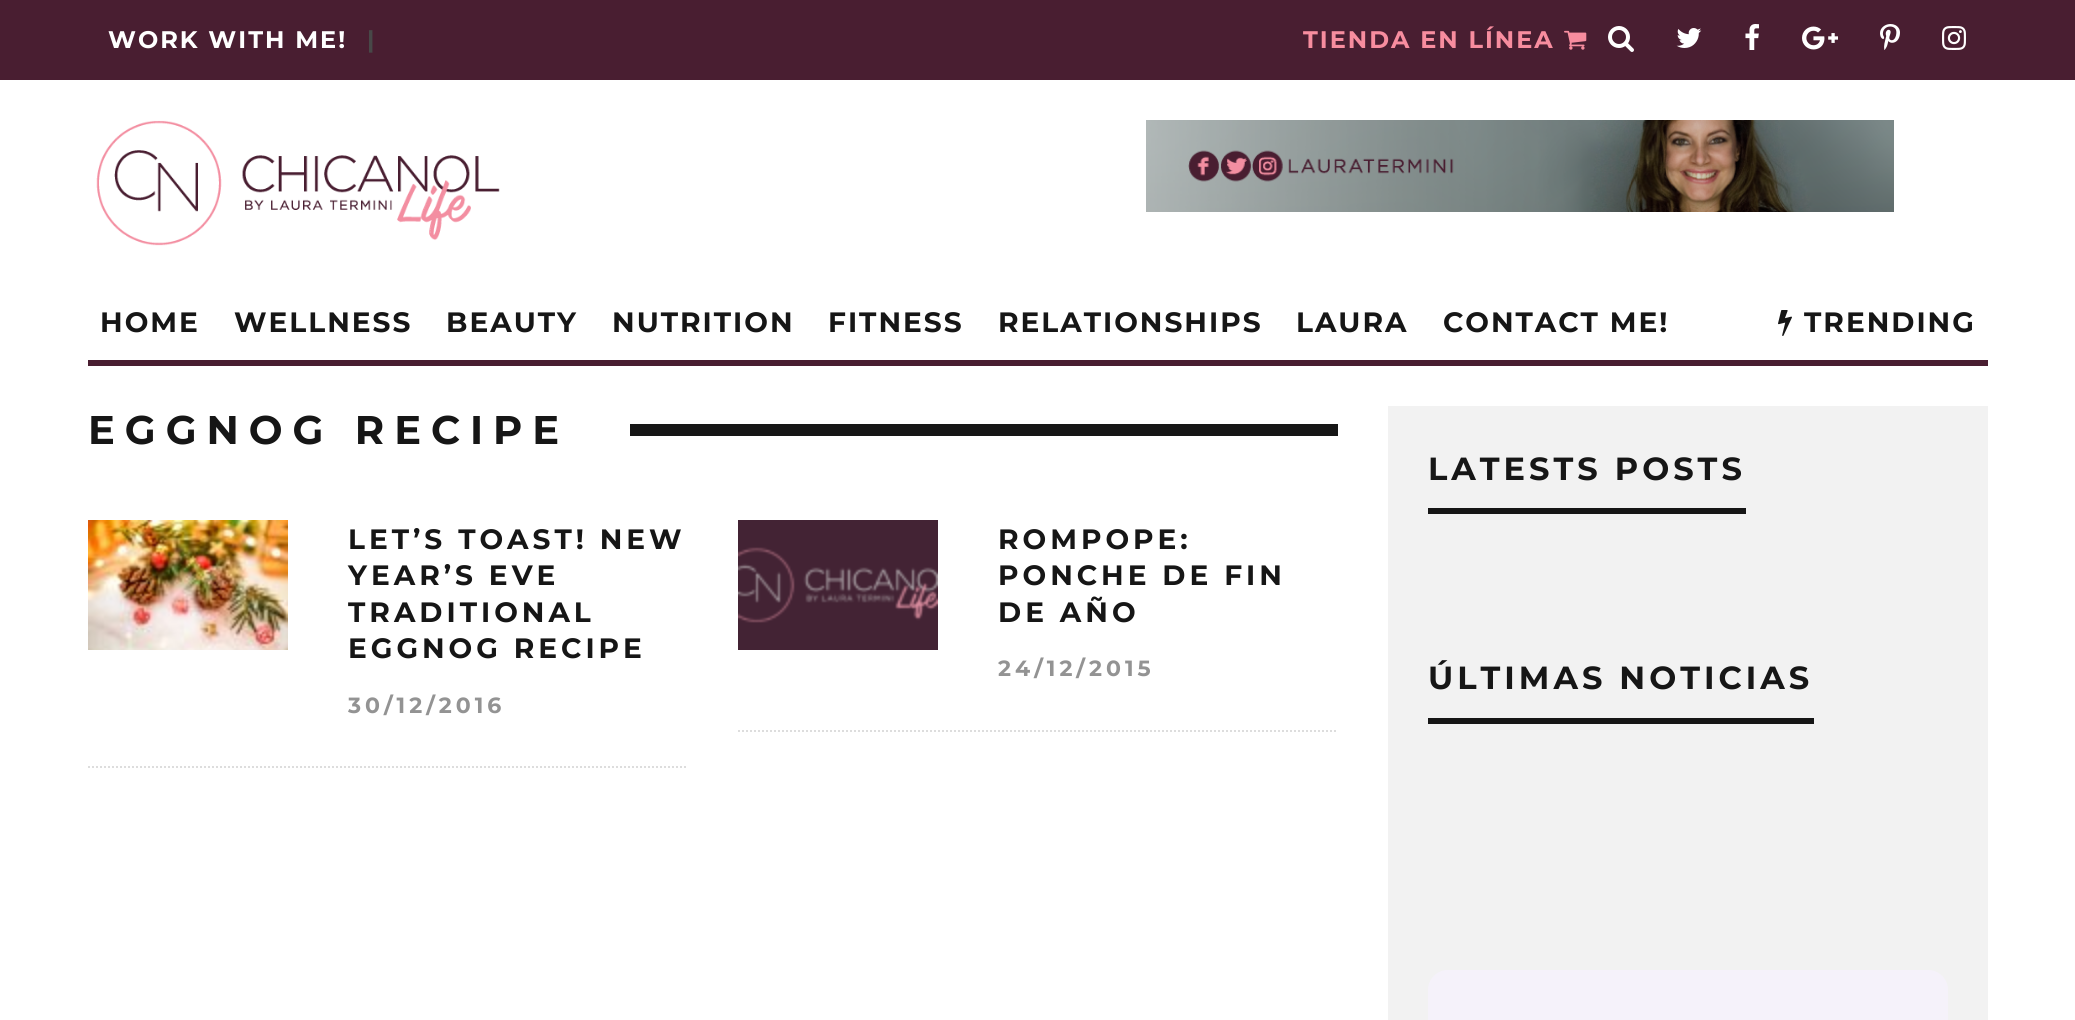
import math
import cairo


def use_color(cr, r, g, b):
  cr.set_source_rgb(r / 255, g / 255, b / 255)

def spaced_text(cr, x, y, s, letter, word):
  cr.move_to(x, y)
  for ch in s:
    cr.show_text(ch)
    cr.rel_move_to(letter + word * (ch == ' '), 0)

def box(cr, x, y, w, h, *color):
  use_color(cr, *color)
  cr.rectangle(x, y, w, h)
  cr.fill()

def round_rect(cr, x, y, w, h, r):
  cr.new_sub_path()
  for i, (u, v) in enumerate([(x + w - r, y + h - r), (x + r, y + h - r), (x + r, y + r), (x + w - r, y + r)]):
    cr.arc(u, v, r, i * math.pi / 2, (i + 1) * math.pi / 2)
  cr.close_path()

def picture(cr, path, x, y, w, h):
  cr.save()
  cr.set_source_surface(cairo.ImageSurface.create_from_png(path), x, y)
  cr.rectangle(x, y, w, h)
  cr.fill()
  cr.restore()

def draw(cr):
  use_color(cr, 255, 255, 255)
  cr.paint()
  box(cr, 0, 0, 2075, 80, 73, 30, 49)
  picture(cr, "img_01.png", 1564, 30, 23, 20)
  picture(cr, "img_02.png", 1608, 26, 26, 26)
  picture(cr, "img_03.png", 1676, 28, 26, 20)
  picture(cr, "img_04.png", 1745, 24, 14, 26)
  picture(cr, "img_05.png", 1802, 26, 36, 24)
  picture(cr, "img_06.png", 1880, 24, 20, 26)
  picture(cr, "img_07.png", 1942, 26, 24, 24)
  picture(cr, "img_08.png", 96, 120, 404, 126)
  picture(cr, "img_09.png", 1146, 120, 748, 92)
  box(cr, 88, 360, 1900, 6, 73, 30, 49)
  picture(cr, "img_10.png", 1778, 310, 14, 26)
  box(cr, 630, 424, 708, 12, 22, 22, 22)
  cr.new_path()
  cr.move_to(88, 767)
  cr.line_to(688, 767)
  use_color(cr, 221, 221, 221)
  cr.set_dash([2, 2])
  cr.stroke()
  picture(cr, "img_11.png", 88, 520, 200, 130)
  cr.new_path()
  cr.move_to(738, 731)
  cr.line_to(1338, 731)
  cr.stroke()
  picture(cr, "img_12.png", 738, 520, 200, 130)
  box(cr, 1388, 406, 600, 614, 242, 242, 242)
  box(cr, 1428, 508, 318, 6, 22, 22, 22)
  box(cr, 1428, 718, 386, 6, 22, 22, 22)
  use_color(cr, 245, 242, 250)
  round_rect(cr, 1428, 970, 520, 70, 20)
  cr.fill()
  cr.select_font_face("Montserrat", cairo.FONT_SLANT_NORMAL, cairo.FONT_WEIGHT_BOLD)
  cr.set_font_size(24)
  use_color(cr, 255, 255, 255)
  spaced_text(cr, 108, 48, "WORK WITH ME!", 2, 0)
  use_color(cr, 72, 72, 72)
  spaced_text(cr, 367, 48, "|", 2, 0)
  use_color(cr, 247, 141, 159)
  spaced_text(cr, 1303, 48, "TIENDA EN LÍNEA", 2, 0)
  cr.set_font_size(28)
  use_color(cr, 22, 22, 22)
  spaced_text(cr, 100, 332, "HOME", 2, 0)
  spaced_text(cr, 234, 332, "WELLNESS", 2, 0)
  spaced_text(cr, 446, 332, "BEAUTY", 2, 0)
  spaced_text(cr, 612, 332, "NUTRITION", 2, 0)
  spaced_text(cr, 828, 332, "FITNESS", 2, 0)
  spaced_text(cr, 998, 332, "RELATIONSHIPS", 2, 0)
  spaced_text(cr, 1296, 332, "LAURA", 2, 0)
  spaced_text(cr, 1443, 332, "CONTACT ME!", 2, 0)
  spaced_text(cr, 1804, 332, "TRENDING", 2, 0)
  cr.set_font_size(40)
  spaced_text(cr, 88, 444, "EGGNOG RECIPE", 10, 0)
  cr.set_font_size(28)
  spaced_text(cr, 348, 549, "LET’S TOAST! NEW", 4, 0)
  spaced_text(cr, 348, 585, "YEAR’S EVE", 4, 0)
  spaced_text(cr, 348, 622, "TRADITIONAL", 4, 0)
  spaced_text(cr, 348, 658, "EGGNOG RECIPE", 4, 0)
  cr.set_font_size(22)
  use_color(cr, 147, 147, 147)
  spaced_text(cr, 348, 713, "30/12/2016", 4, 0)
  cr.set_font_size(28)
  use_color(cr, 22, 22, 22)
  spaced_text(cr, 998, 549, "ROMPOPE:", 4, 0)
  spaced_text(cr, 998, 585, "PONCHE DE FIN", 4, 0)
  spaced_text(cr, 998, 622, "DE AÑO", 4, 0)
  cr.set_font_size(22)
  use_color(cr, 147, 147, 147)
  spaced_text(cr, 998, 676, "24/12/2015", 4, 0)
  cr.set_font_size(32)
  use_color(cr, 22, 22, 22)
  spaced_text(cr, 1428, 480, "LATESTS POSTS", 4, 0)
  spaced_text(cr, 1428, 689, "ÚLTIMAS NOTICIAS", 4, 0)


surface = cairo.ImageSurface(cairo.FORMAT_RGB24, 2075, 1020)
cr = cairo.Context(surface)
options = cairo.FontOptions()
options.set_hint_metrics(cairo.HINT_METRICS_OFF)
options.set_hint_style(cairo.HINT_STYLE_NONE)
cr.set_font_options(options)
cr.set_miter_limit(4)
draw(cr)
surface.write_to_png("out.png")
